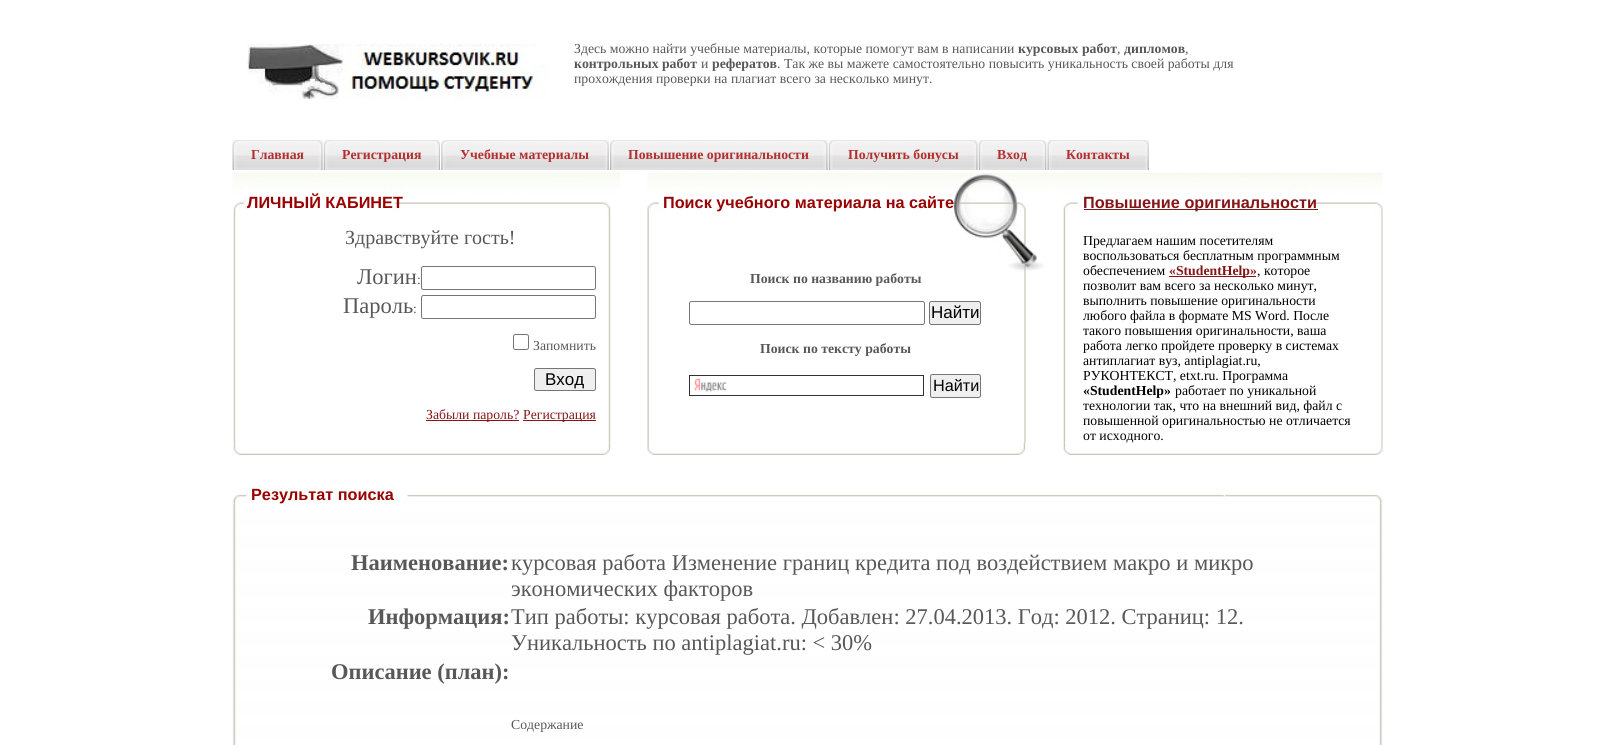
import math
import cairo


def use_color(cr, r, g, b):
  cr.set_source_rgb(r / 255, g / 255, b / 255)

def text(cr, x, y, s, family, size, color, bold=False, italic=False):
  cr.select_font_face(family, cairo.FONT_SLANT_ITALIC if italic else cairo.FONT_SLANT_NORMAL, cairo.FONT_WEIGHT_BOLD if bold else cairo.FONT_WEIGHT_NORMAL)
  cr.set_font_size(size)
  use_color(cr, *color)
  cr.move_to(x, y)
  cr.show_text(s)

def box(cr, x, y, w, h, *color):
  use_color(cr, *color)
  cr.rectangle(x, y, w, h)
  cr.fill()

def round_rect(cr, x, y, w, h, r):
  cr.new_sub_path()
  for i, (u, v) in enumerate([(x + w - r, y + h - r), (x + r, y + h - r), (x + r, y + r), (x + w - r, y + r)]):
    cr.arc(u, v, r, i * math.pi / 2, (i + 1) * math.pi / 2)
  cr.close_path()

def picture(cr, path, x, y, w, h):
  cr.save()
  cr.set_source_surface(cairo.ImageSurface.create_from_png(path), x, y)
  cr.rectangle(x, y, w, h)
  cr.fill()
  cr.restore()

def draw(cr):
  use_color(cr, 255, 255, 255)
  cr.paint()
  picture(cr, "img_01.png", 247, 43, 301, 56)
  picture(cr, "img_02.png", 232, 140, 91, 30)
  picture(cr, "img_03.png", 317, 140, 6, 30)
  picture(cr, "img_04.png", 323, 140, 112, 30)
  picture(cr, "img_05.png", 435, 140, 5, 30)
  picture(cr, "img_06.png", 441, 140, 168, 30)
  picture(cr, "img_07.png", 603, 140, 6, 30)
  picture(cr, "img_08.png", 610, 140, 218, 30)
  picture(cr, "img_09.png", 822, 140, 6, 30)
  picture(cr, "img_10.png", 828, 140, 150, 30)
  picture(cr, "img_11.png", 972, 140, 6, 30)
  picture(cr, "img_12.png", 978, 140, 69, 30)
  picture(cr, "img_13.png", 1041, 140, 6, 30)
  picture(cr, "img_14.png", 1047, 140, 102, 30)
  picture(cr, "img_15.png", 1143, 140, 6, 30)
  picture(cr, "img_16.png", 232, 172, 388, 271)
  round_rect(cr, 421.5, 266.5, 174, 23, 2)
  use_color(cr, 118, 118, 118)
  cr.set_line_width(1)
  cr.stroke()
  round_rect(cr, 421.5, 295.5, 174, 23, 2)
  cr.stroke()
  round_rect(cr, 513.5, 334.5, 15, 15, 2)
  cr.stroke()
  use_color(cr, 239, 239, 239)
  round_rect(cr, 534.5, 368.5, 61, 22, 2)
  cr.fill_preserve()
  use_color(cr, 118, 118, 118)
  cr.stroke()
  box(cr, 426, 420, 93, 1, 133, 22, 24)
  box(cr, 523, 420, 73, 1, 133, 22, 24)
  picture(cr, "img_17.png", 647, 172, 416, 271)
  round_rect(cr, 689.5, 301.5, 235, 23, 2)
  use_color(cr, 118, 118, 118)
  cr.stroke()
  use_color(cr, 239, 239, 239)
  round_rect(cr, 929.5, 301.5, 51, 23, 2)
  cr.fill_preserve()
  use_color(cr, 118, 118, 118)
  cr.stroke()
  picture(cr, "img_18.png", 693, 378, 34, 15)
  cr.rectangle(689.5, 375.5, 234, 20)
  use_color(cr, 51, 51, 51)
  cr.stroke()
  use_color(cr, 239, 239, 239)
  round_rect(cr, 930.5, 374.5, 50, 23, 2)
  cr.fill_preserve()
  use_color(cr, 118, 118, 118)
  cr.stroke()
  picture(cr, "img_19.png", 1062, 172, 321, 271)
  box(cr, 1084, 209, 234, 1, 133, 22, 24)
  box(cr, 1169, 276, 87, 1, 133, 22, 24)
  picture(cr, "img_20.png", 233, 442, 378, 13)
  picture(cr, "img_21.png", 647, 442, 379, 13)
  picture(cr, "img_22.png", 1063, 442, 320, 13)
  picture(cr, "img_23.png", 232, 494, 1151, 10)
  picture(cr, "img_24.png", 232, 503, 1151, 242)
  text(cr, 574, 53, "Здесь можно найти учебные материалы, которые помогут вам в написании", "Liberation Serif", 13.75, (88, 88, 88))
  text(cr, 1018, 53, "курсовых работ", "Liberation Serif", 13.75, (88, 88, 88), bold=True)
  text(cr, 1117, 53, ",", "Liberation Serif", 13.75, (88, 88, 88))
  text(cr, 1124, 53, "дипломов", "Liberation Serif", 13.75, (88, 88, 88), bold=True)
  text(cr, 1185, 53, ",", "Liberation Serif", 13.75, (88, 88, 88))
  text(cr, 574, 68, "контрольных работ", "Liberation Serif", 13.75, (88, 88, 88), bold=True)
  text(cr, 701, 68, "и", "Liberation Serif", 13.75, (88, 88, 88))
  text(cr, 712, 68, "рефератов", "Liberation Serif", 13.75, (88, 88, 88), bold=True)
  text(cr, 777, 68, ". Так же вы мажете самостоятельно повысить уникальность своей работы для", "Liberation Serif", 13.75, (88, 88, 88))
  text(cr, 574, 83, "прохождения проверки на плагиат всего за несколько минут.", "Liberation Serif", 13.75, (88, 88, 88))
  text(cr, 251, 159, "Главная", "Liberation Serif", 13.75, (179, 47, 47), bold=True)
  text(cr, 342, 159, "Регистрация", "Liberation Serif", 13.75, (179, 47, 47), bold=True)
  text(cr, 460, 159, "Учебные материалы", "Liberation Serif", 13.75, (179, 47, 47), bold=True)
  text(cr, 628, 159, "Повышение оригинальности", "Liberation Serif", 13.75, (179, 47, 47), bold=True)
  text(cr, 848, 159, "Получить бонусы", "Liberation Serif", 13.75, (179, 47, 47), bold=True)
  text(cr, 997, 159, "Вход", "Liberation Serif", 13.75, (179, 47, 47), bold=True)
  text(cr, 1066, 159, "Контакты", "Liberation Serif", 13.75, (179, 47, 47), bold=True)
  text(cr, 247, 208, "ЛИЧНЫЙ КАБИНЕТ", "Liberation Sans", 16.25, (152, 2, 2), bold=True)
  text(cr, 345, 244, "Здравствуйте гость!", "Liberation Serif", 20, (88, 88, 88))
  text(cr, 357, 284, "Логин", "Liberation Serif", 22.5, (88, 88, 88))
  text(cr, 417, 284, ":", "Liberation Serif", 13.75, (88, 88, 88))
  text(cr, 343, 313, "Пароль", "Liberation Serif", 22.5, (88, 88, 88))
  text(cr, 413, 313, ":", "Liberation Serif", 13.75, (88, 88, 88))
  text(cr, 533, 350, "Запомнить", "Liberation Serif", 13.75, (88, 88, 88))
  text(cr, 545, 385, "Вход", "Liberation Sans", 17, (0, 0, 0))
  text(cr, 426, 419, "Забыли пароль?", "Liberation Serif", 13.75, (133, 22, 24))
  text(cr, 523, 419, "Регистрация", "Liberation Serif", 13.75, (133, 22, 24))
  text(cr, 663, 208, "Поиск учебного материала на сайте", "Liberation Sans", 16.25, (152, 2, 2), bold=True)
  text(cr, 750, 283, "Поиск по названию работы", "Liberation Serif", 13.75, (88, 88, 88), bold=True)
  text(cr, 931, 318, "Найти", "Liberation Sans", 17, (0, 0, 0))
  text(cr, 760, 353, "Поиск по тексту работы", "Liberation Serif", 13.75, (88, 88, 88), bold=True)
  text(cr, 933, 391, "Найти", "Liberation Sans", 16.25, (0, 0, 0))
  text(cr, 1083, 208, "Повышение оригинальности", "Liberation Sans", 16.25, (133, 22, 24), bold=True)
  text(cr, 1083, 245, "Предлагаем нашим посетителям", "Liberation Serif", 13.75, (0, 0, 0))
  text(cr, 1083, 260, "воспользоваться бесплатным программным", "Liberation Serif", 13.75, (0, 0, 0))
  text(cr, 1083, 275, "обеспечением", "Liberation Serif", 13.75, (0, 0, 0))
  text(cr, 1169, 275, "«StudentHelp»", "Liberation Serif", 13.75, (133, 22, 24), bold=True)
  text(cr, 1257, 275, ", которое", "Liberation Serif", 13.75, (0, 0, 0))
  text(cr, 1083, 290, "позволит вам всего за несколько минут,", "Liberation Serif", 13.75, (0, 0, 0))
  text(cr, 1083, 305, "выполнить повышение оригинальности", "Liberation Serif", 13.75, (0, 0, 0))
  text(cr, 1083, 320, "любого файла в формате MS Word. После", "Liberation Serif", 13.75, (0, 0, 0))
  text(cr, 1083, 335, "такого повышения оригинальности, ваша", "Liberation Serif", 13.75, (0, 0, 0))
  text(cr, 1083, 350, "работа легко пройдете проверку в системах", "Liberation Serif", 13.75, (0, 0, 0))
  text(cr, 1083, 365, "антиплагиат вуз, antiplagiat.ru,", "Liberation Serif", 13.75, (0, 0, 0))
  text(cr, 1083, 380, "РУКОНТЕКСТ, etxt.ru. Программа", "Liberation Serif", 13.75, (0, 0, 0))
  text(cr, 1083, 395, "«StudentHelp»", "Liberation Serif", 13.75, (0, 0, 0), bold=True)
  text(cr, 1175, 395, "работает по уникальной", "Liberation Serif", 13.75, (0, 0, 0))
  text(cr, 1083, 410, "технологии так, что на внешний вид, файл с", "Liberation Serif", 13.75, (0, 0, 0))
  text(cr, 1083, 425, "повышенной оригинальностью не отличается", "Liberation Serif", 13.75, (0, 0, 0))
  text(cr, 1083, 440, "от исходного.", "Liberation Serif", 13.75, (0, 0, 0))
  text(cr, 251, 500, "Результат поиска", "Liberation Sans", 16.25, (152, 2, 2), bold=True)
  text(cr, 351, 570, "Наименование:", "Liberation Serif", 22.5, (88, 88, 88), bold=True)
  text(cr, 511, 570, "курсовая работа Изменение границ кредита под воздействием макро и микро", "Liberation Serif", 22.5, (88, 88, 88))
  text(cr, 511, 596, "экономических факторов", "Liberation Serif", 22.5, (88, 88, 88))
  text(cr, 368, 624, "Информация:", "Liberation Serif", 22.5, (88, 88, 88), bold=True)
  text(cr, 511, 624, "Тип работы: курсовая работа. Добавлен: 27.04.2013. Год: 2012. Страниц: 12.", "Liberation Serif", 22.5, (88, 88, 88))
  text(cr, 511, 650, "Уникальность по antiplagiat.ru: < 30%", "Liberation Serif", 22.5, (88, 88, 88))
  text(cr, 331, 679, "Описание (план):", "Liberation Serif", 22.5, (88, 88, 88), bold=True)
  text(cr, 511, 729, "Содержание", "Liberation Serif", 13.75, (88, 88, 88))


surface = cairo.ImageSurface(cairo.FORMAT_RGB24, 1613, 745)
cr = cairo.Context(surface)
options = cairo.FontOptions()
options.set_hint_metrics(cairo.HINT_METRICS_OFF)
options.set_hint_style(cairo.HINT_STYLE_NONE)
cr.set_font_options(options)
cr.set_miter_limit(4)
draw(cr)
surface.write_to_png("out.png")
